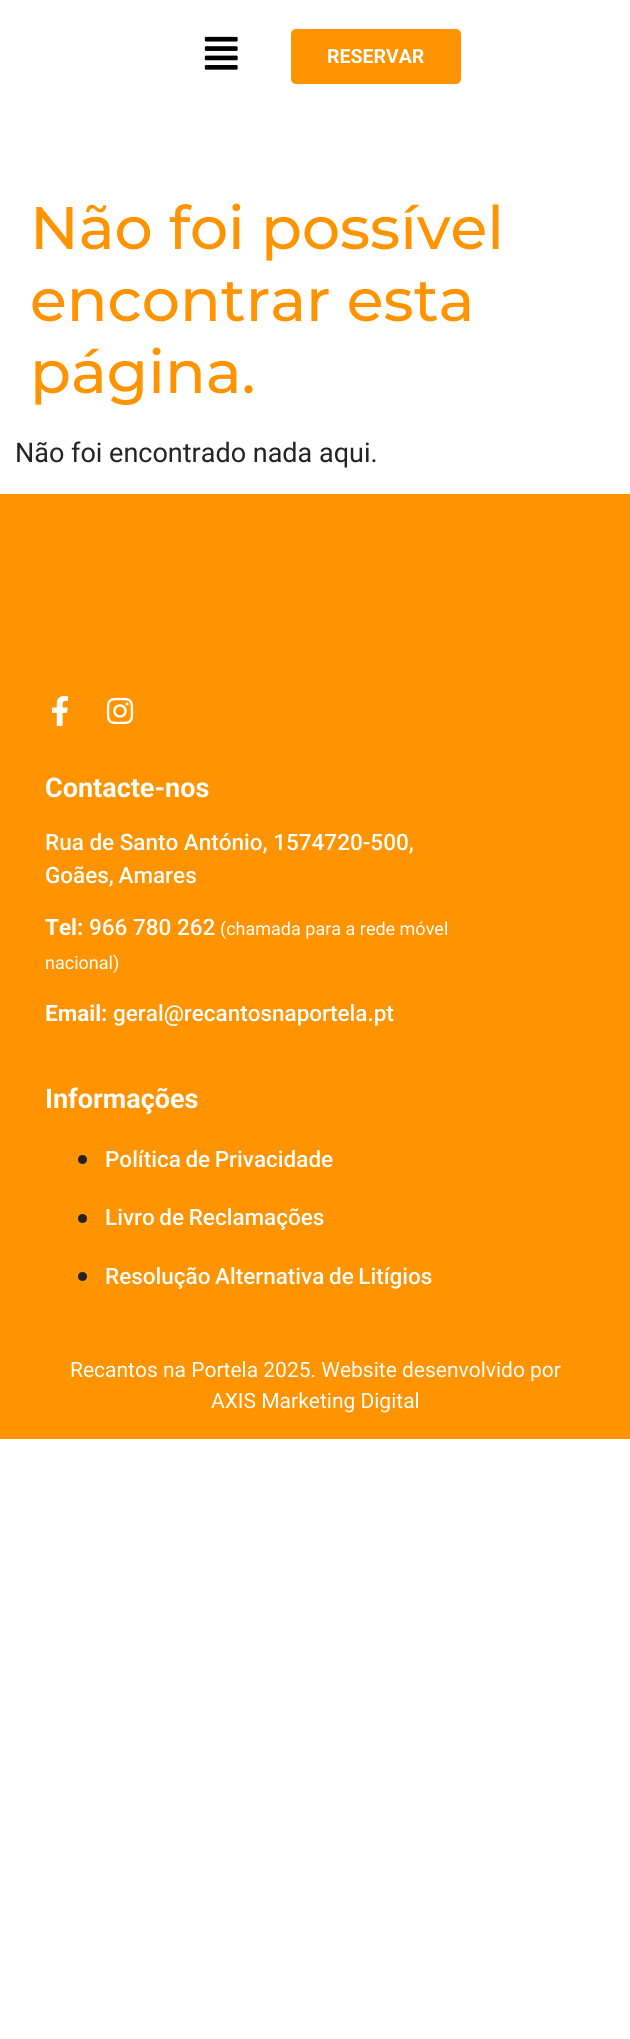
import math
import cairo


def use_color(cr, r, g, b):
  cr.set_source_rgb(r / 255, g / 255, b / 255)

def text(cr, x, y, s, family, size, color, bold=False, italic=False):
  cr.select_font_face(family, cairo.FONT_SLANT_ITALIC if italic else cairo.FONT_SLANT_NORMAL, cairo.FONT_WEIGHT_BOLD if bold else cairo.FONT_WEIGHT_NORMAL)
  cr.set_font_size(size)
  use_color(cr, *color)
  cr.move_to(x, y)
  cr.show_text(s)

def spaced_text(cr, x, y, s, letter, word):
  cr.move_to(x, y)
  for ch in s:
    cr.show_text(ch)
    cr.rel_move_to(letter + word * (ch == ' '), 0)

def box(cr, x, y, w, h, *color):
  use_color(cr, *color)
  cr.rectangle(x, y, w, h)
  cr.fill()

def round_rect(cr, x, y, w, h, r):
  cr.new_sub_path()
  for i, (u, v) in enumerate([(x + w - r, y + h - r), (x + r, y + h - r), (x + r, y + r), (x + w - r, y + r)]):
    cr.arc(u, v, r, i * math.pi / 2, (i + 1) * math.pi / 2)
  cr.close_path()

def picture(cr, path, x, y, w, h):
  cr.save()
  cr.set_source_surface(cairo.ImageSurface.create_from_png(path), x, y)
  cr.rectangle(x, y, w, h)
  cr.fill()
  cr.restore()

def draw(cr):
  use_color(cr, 255, 255, 255)
  cr.paint()
  picture(cr, "img_01.png", 204, 36, 34, 34)
  use_color(cr, 255, 147, 0)
  round_rect(cr, 291, 29, 170, 55, 5)
  cr.fill()
  box(cr, 0, 494, 630, 945, 255, 147, 0)
  picture(cr, "img_02.png", 51, 696, 18, 30)
  picture(cr, "img_03.png", 106, 697, 28, 28)
  use_color(cr, 35, 35, 35)
  cr.arc(82.5, 1159.5, 4.5, 0, 2 * math.pi)
  cr.fill()
  cr.arc(82.5, 1218.5, 4.5, 0, 2 * math.pi)
  cr.fill()
  cr.arc(82.5, 1276.5, 4.5, 0, 2 * math.pi)
  cr.fill()
  text(cr, 327, 63, "RESERVAR", "Roboto", 19.5, (255, 255, 255), bold=True)
  text(cr, 30, 249, "Não foi possível", "Montserrat Medium", 60, (255, 147, 0))
  text(cr, 30, 321, "encontrar esta", "Montserrat Medium", 60, (255, 147, 0))
  text(cr, 30, 393, "página.", "Montserrat Medium", 60, (255, 147, 0))
  text(cr, 15, 462, "Não foi encontrado nada aqui.", "Roboto", 27, (35, 35, 35))
  text(cr, 45, 797, "Contacte-nos", "Roboto", 27, (255, 255, 255), bold=True)
  text(cr, 45, 850, "Rua de Santo António, 1574720-500,", "Roboto Medium", 22.5, (255, 255, 255))
  spaced_text(cr, 45, 883, "Goães, Amares", 0, -1)
  text(cr, 45, 935, "Tel:", "Roboto", 22.5, (255, 255, 255), bold=True)
  text(cr, 89, 935, "966 780 262", "Roboto Medium", 22.5, (255, 255, 255))
  text(cr, 220, 935, "(chamada para a rede móvel", "Roboto", 18, (255, 255, 255))
  text(cr, 45, 969, "nacional)", "Roboto", 18, (255, 255, 255))
  text(cr, 45, 1021, "Email:", "Roboto", 22.5, (255, 255, 255), bold=True)
  text(cr, 113, 1021, "geral@recantosnaportela.pt", "Roboto Medium", 22.5, (255, 255, 255))
  text(cr, 45, 1108, "Informações", "Roboto", 27, (255, 255, 255), bold=True)
  cr.select_font_face("Roboto Medium")
  cr.set_font_size(22.5)
  spaced_text(cr, 105, 1167, "Política de Privacidade", 0, -1)
  spaced_text(cr, 105, 1225, "Livro de Reclamações", 0, -1)
  spaced_text(cr, 105, 1284, "Resolução Alternativa de Litígios", 0, -1)
  text(cr, 70, 1377, "Recantos na Portela 2025. Website desenvolvido por", "Roboto", 21, (255, 255, 255))
  text(cr, 211, 1408, "AXIS Marketing Digital", "Roboto", 21, (255, 255, 255))


surface = cairo.ImageSurface(cairo.FORMAT_RGB24, 630, 2039)
cr = cairo.Context(surface)
options = cairo.FontOptions()
options.set_hint_metrics(cairo.HINT_METRICS_OFF)
options.set_hint_style(cairo.HINT_STYLE_NONE)
cr.set_font_options(options)
cr.set_miter_limit(4)
draw(cr)
surface.write_to_png("out.png")
